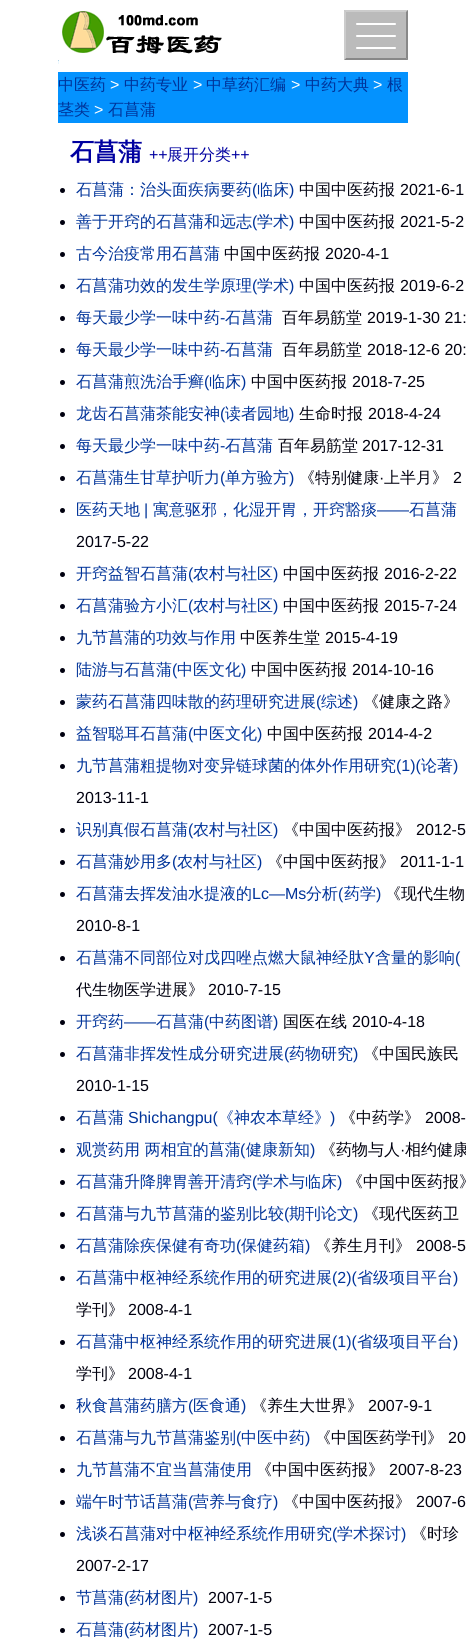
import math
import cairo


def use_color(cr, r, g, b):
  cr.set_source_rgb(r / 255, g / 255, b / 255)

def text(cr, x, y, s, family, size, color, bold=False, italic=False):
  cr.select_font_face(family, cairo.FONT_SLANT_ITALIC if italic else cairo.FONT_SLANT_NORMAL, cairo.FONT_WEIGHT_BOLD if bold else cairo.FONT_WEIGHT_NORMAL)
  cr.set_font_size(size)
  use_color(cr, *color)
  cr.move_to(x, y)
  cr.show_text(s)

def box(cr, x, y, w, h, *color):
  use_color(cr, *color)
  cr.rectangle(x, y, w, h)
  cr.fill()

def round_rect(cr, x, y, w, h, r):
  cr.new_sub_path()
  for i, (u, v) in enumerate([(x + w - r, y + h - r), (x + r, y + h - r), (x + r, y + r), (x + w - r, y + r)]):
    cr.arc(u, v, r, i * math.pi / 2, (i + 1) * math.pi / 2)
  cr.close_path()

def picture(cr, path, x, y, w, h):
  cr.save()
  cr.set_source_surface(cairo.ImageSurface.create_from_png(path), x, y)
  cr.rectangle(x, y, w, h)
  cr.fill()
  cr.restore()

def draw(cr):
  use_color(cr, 255, 255, 255)
  cr.paint()
  picture(cr, "img_01.png", 58, 11, 164, 53)
  box(cr, 344, 10, 64, 50, 187, 187, 187)
  use_color(cr, 204, 204, 204)
  cr.new_path()
  cr.move_to(344, 10)
  cr.line_to(408, 10)
  cr.line_to(406, 12)
  cr.line_to(346, 12)
  cr.close_path()
  cr.fill()
  use_color(cr, 136, 136, 136)
  cr.new_path()
  cr.move_to(408, 10)
  cr.line_to(408, 60)
  cr.line_to(406, 58)
  cr.line_to(406, 12)
  cr.close_path()
  cr.fill()
  cr.new_path()
  cr.move_to(408, 60)
  cr.line_to(344, 60)
  cr.line_to(346, 58)
  cr.line_to(406, 58)
  cr.close_path()
  cr.fill()
  use_color(cr, 204, 204, 204)
  cr.new_path()
  cr.move_to(344, 60)
  cr.line_to(344, 10)
  cr.line_to(346, 12)
  cr.line_to(346, 58)
  cr.close_path()
  cr.fill()
  use_color(cr, 255, 255, 255)
  round_rect(cr, 356, 23, 40, 2, 1)
  cr.fill()
  round_rect(cr, 356, 35, 40, 2, 1)
  cr.fill()
  round_rect(cr, 356, 47, 40, 2, 1)
  cr.fill()
  box(cr, 58, 72, 350, 51, 4, 146, 254)
  use_color(cr, 0, 0, 15)
  cr.arc(62.5, 190.5, 2.5, 0, 2 * math.pi)
  cr.fill()
  cr.arc(62.5, 222.5, 2.5, 0, 2 * math.pi)
  cr.fill()
  cr.arc(62.5, 254.5, 2.5, 0, 2 * math.pi)
  cr.fill()
  cr.arc(62.5, 286.5, 2.5, 0, 2 * math.pi)
  cr.fill()
  cr.arc(62.5, 318.5, 2.5, 0, 2 * math.pi)
  cr.fill()
  cr.arc(62.5, 350.5, 2.5, 0, 2 * math.pi)
  cr.fill()
  cr.arc(62.5, 382.5, 2.5, 0, 2 * math.pi)
  cr.fill()
  cr.arc(62.5, 414.5, 2.5, 0, 2 * math.pi)
  cr.fill()
  cr.arc(62.5, 446.5, 2.5, 0, 2 * math.pi)
  cr.fill()
  cr.arc(62.5, 478.5, 2.5, 0, 2 * math.pi)
  cr.fill()
  cr.arc(62.5, 510.5, 2.5, 0, 2 * math.pi)
  cr.fill()
  cr.arc(62.5, 574.5, 2.5, 0, 2 * math.pi)
  cr.fill()
  cr.arc(62.5, 606.5, 2.5, 0, 2 * math.pi)
  cr.fill()
  cr.arc(62.5, 638.5, 2.5, 0, 2 * math.pi)
  cr.fill()
  cr.arc(62.5, 670.5, 2.5, 0, 2 * math.pi)
  cr.fill()
  cr.arc(62.5, 702.5, 2.5, 0, 2 * math.pi)
  cr.fill()
  cr.arc(62.5, 734.5, 2.5, 0, 2 * math.pi)
  cr.fill()
  cr.arc(62.5, 766.5, 2.5, 0, 2 * math.pi)
  cr.fill()
  cr.arc(62.5, 830.5, 2.5, 0, 2 * math.pi)
  cr.fill()
  cr.arc(62.5, 862.5, 2.5, 0, 2 * math.pi)
  cr.fill()
  cr.arc(62.5, 894.5, 2.5, 0, 2 * math.pi)
  cr.fill()
  cr.arc(62.5, 958.5, 2.5, 0, 2 * math.pi)
  cr.fill()
  cr.arc(62.5, 1022.5, 2.5, 0, 2 * math.pi)
  cr.fill()
  cr.arc(62.5, 1054.5, 2.5, 0, 2 * math.pi)
  cr.fill()
  cr.arc(62.5, 1118.5, 2.5, 0, 2 * math.pi)
  cr.fill()
  cr.arc(62.5, 1150.5, 2.5, 0, 2 * math.pi)
  cr.fill()
  cr.arc(62.5, 1182.5, 2.5, 0, 2 * math.pi)
  cr.fill()
  cr.arc(62.5, 1214.5, 2.5, 0, 2 * math.pi)
  cr.fill()
  cr.arc(62.5, 1246.5, 2.5, 0, 2 * math.pi)
  cr.fill()
  cr.arc(62.5, 1278.5, 2.5, 0, 2 * math.pi)
  cr.fill()
  cr.arc(62.5, 1342.5, 2.5, 0, 2 * math.pi)
  cr.fill()
  cr.arc(62.5, 1406.5, 2.5, 0, 2 * math.pi)
  cr.fill()
  cr.arc(62.5, 1438.5, 2.5, 0, 2 * math.pi)
  cr.fill()
  cr.arc(62.5, 1470.5, 2.5, 0, 2 * math.pi)
  cr.fill()
  cr.arc(62.5, 1502.5, 2.5, 0, 2 * math.pi)
  cr.fill()
  cr.arc(62.5, 1534.5, 2.5, 0, 2 * math.pi)
  cr.fill()
  cr.arc(62.5, 1598.5, 2.5, 0, 2 * math.pi)
  cr.fill()
  cr.arc(62.5, 1630.5, 2.5, 0, 2 * math.pi)
  cr.fill()
  text(cr, 58, 90, "中医药", "WenQuanYi Zen Hei Medium", 16, (0, 51, 153))
  text(cr, 110, 90, ">", "Liberation Sans", 16, (255, 255, 255))
  text(cr, 124, 90, "中药专业", "WenQuanYi Zen Hei Medium", 16, (0, 51, 153))
  text(cr, 193, 90, ">", "Liberation Sans", 16, (255, 255, 255))
  text(cr, 206, 90, "中草药汇编", "WenQuanYi Zen Hei Medium", 16, (0, 51, 153))
  text(cr, 291, 90, ">", "Liberation Sans", 16, (255, 255, 255))
  text(cr, 305, 90, "中药大典", "WenQuanYi Zen Hei Medium", 16, (0, 51, 153))
  text(cr, 373, 90, ">", "Liberation Sans", 16, (255, 255, 255))
  text(cr, 387, 90, "根", "WenQuanYi Zen Hei Medium", 16, (0, 51, 153))
  text(cr, 58, 115, "茎类", "WenQuanYi Zen Hei Medium", 16, (0, 51, 153))
  text(cr, 94, 115, ">", "Liberation Sans", 16, (255, 255, 255))
  text(cr, 108, 115, "石菖蒲", "WenQuanYi Zen Hei Medium", 16, (0, 51, 153))
  text(cr, 70, 160, "石菖蒲", "WenQuanYi Zen Hei", 24, (0, 0, 160), bold=True)
  text(cr, 149, 160, "++", "Liberation Sans", 16, (0, 0, 160))
  text(cr, 167, 160, "展开分类", "WenQuanYi Zen Hei Medium", 16, (0, 0, 160))
  text(cr, 231, 160, "++", "Liberation Sans", 16, (0, 0, 160))
  text(cr, 76, 195, "石菖蒲：治头面疾病要药", "WenQuanYi Zen Hei Medium", 16, (0, 51, 153))
  text(cr, 252, 195, "(", "Liberation Sans", 16, (0, 51, 153))
  text(cr, 257, 195, "临床", "WenQuanYi Zen Hei Medium", 16, (0, 51, 153))
  text(cr, 289, 195, ")", "Liberation Sans", 16, (0, 51, 153))
  text(cr, 299, 195, "中国中医药报", "WenQuanYi Zen Hei Medium", 16, (0, 0, 15))
  text(cr, 400, 195, "2021-6-1", "Liberation Sans", 16, (0, 0, 15))
  text(cr, 76, 227, "善于开窍的石菖蒲和远志", "WenQuanYi Zen Hei Medium", 16, (0, 51, 153))
  text(cr, 252, 227, "(", "Liberation Sans", 16, (0, 51, 153))
  text(cr, 257, 227, "学术", "WenQuanYi Zen Hei Medium", 16, (0, 51, 153))
  text(cr, 289, 227, ")", "Liberation Sans", 16, (0, 51, 153))
  text(cr, 299, 227, "中国中医药报", "WenQuanYi Zen Hei Medium", 16, (0, 0, 15))
  text(cr, 400, 227, "2021-5-2", "Liberation Sans", 16, (0, 0, 15))
  text(cr, 76, 259, "古今治疫常用石菖蒲", "WenQuanYi Zen Hei Medium", 16, (0, 51, 153))
  text(cr, 224, 259, "中国中医药报", "WenQuanYi Zen Hei Medium", 16, (0, 0, 15))
  text(cr, 325, 259, "2020-4-1", "Liberation Sans", 16, (0, 0, 15))
  text(cr, 76, 291, "石菖蒲功效的发生学原理", "WenQuanYi Zen Hei Medium", 16, (0, 51, 153))
  text(cr, 252, 291, "(", "Liberation Sans", 16, (0, 51, 153))
  text(cr, 257, 291, "学术", "WenQuanYi Zen Hei Medium", 16, (0, 51, 153))
  text(cr, 289, 291, ")", "Liberation Sans", 16, (0, 51, 153))
  text(cr, 299, 291, "中国中医药报", "WenQuanYi Zen Hei Medium", 16, (0, 0, 15))
  text(cr, 400, 291, "2019-6-2", "Liberation Sans", 16, (0, 0, 15))
  text(cr, 76, 323, "每天最少学一味中药", "WenQuanYi Zen Hei Medium", 16, (0, 51, 153))
  text(cr, 220, 323, "-", "Liberation Sans", 16, (0, 51, 153))
  text(cr, 225, 323, "石菖蒲", "WenQuanYi Zen Hei Medium", 16, (0, 51, 153))
  text(cr, 282, 323, "百年易筋堂", "WenQuanYi Zen Hei Medium", 16, (0, 0, 15))
  text(cr, 367, 323, "2019-1-30 21:", "Liberation Sans", 16, (0, 0, 15))
  text(cr, 76, 355, "每天最少学一味中药", "WenQuanYi Zen Hei Medium", 16, (0, 51, 153))
  text(cr, 220, 355, "-", "Liberation Sans", 16, (0, 51, 153))
  text(cr, 225, 355, "石菖蒲", "WenQuanYi Zen Hei Medium", 16, (0, 51, 153))
  text(cr, 282, 355, "百年易筋堂", "WenQuanYi Zen Hei Medium", 16, (0, 0, 15))
  text(cr, 367, 355, "2018-12-6 20:", "Liberation Sans", 16, (0, 0, 15))
  text(cr, 76, 387, "石菖蒲煎洗治手癣", "WenQuanYi Zen Hei Medium", 16, (0, 51, 153))
  text(cr, 204, 387, "(", "Liberation Sans", 16, (0, 51, 153))
  text(cr, 209, 387, "临床", "WenQuanYi Zen Hei Medium", 16, (0, 51, 153))
  text(cr, 241, 387, ")", "Liberation Sans", 16, (0, 51, 153))
  text(cr, 251, 387, "中国中医药报", "WenQuanYi Zen Hei Medium", 16, (0, 0, 15))
  text(cr, 352, 387, "2018-7-25", "Liberation Sans", 16, (0, 0, 15))
  text(cr, 76, 419, "龙齿石菖蒲茶能安神", "WenQuanYi Zen Hei Medium", 16, (0, 51, 153))
  text(cr, 220, 419, "(", "Liberation Sans", 16, (0, 51, 153))
  text(cr, 225, 419, "读者园地", "WenQuanYi Zen Hei Medium", 16, (0, 51, 153))
  text(cr, 289, 419, ")", "Liberation Sans", 16, (0, 51, 153))
  text(cr, 299, 419, "生命时报", "WenQuanYi Zen Hei Medium", 16, (0, 0, 15))
  text(cr, 368, 419, "2018-4-24", "Liberation Sans", 16, (0, 0, 15))
  text(cr, 76, 451, "每天最少学一味中药", "WenQuanYi Zen Hei Medium", 16, (0, 51, 153))
  text(cr, 220, 451, "-", "Liberation Sans", 16, (0, 51, 153))
  text(cr, 225, 451, "石菖蒲", "WenQuanYi Zen Hei Medium", 16, (0, 51, 153))
  text(cr, 278, 451, "百年易筋堂", "WenQuanYi Zen Hei Medium", 16, (0, 0, 15))
  text(cr, 362, 451, "2017-12-31", "Liberation Sans", 16, (0, 0, 15))
  text(cr, 76, 483, "石菖蒲生甘草护听力", "WenQuanYi Zen Hei Medium", 16, (0, 51, 153))
  text(cr, 220, 483, "(", "Liberation Sans", 16, (0, 51, 153))
  text(cr, 225, 483, "单方验方", "WenQuanYi Zen Hei Medium", 16, (0, 51, 153))
  text(cr, 289, 483, ")", "Liberation Sans", 16, (0, 51, 153))
  text(cr, 299, 483, "《特别健康", "WenQuanYi Zen Hei Medium", 16, (0, 0, 15))
  text(cr, 379, 483, "·", "Liberation Sans", 16, (0, 0, 15))
  text(cr, 384, 483, "上半月》", "WenQuanYi Zen Hei Medium", 16, (0, 0, 15))
  text(cr, 453, 483, "2", "Liberation Sans", 16, (0, 0, 15))
  text(cr, 76, 515, "医药天地", "WenQuanYi Zen Hei Medium", 16, (0, 51, 153))
  text(cr, 144, 515, "|", "Liberation Sans", 16, (0, 51, 153))
  text(cr, 153, 515, "寓意驱邪，化湿开胃，开窍豁痰", "WenQuanYi Zen Hei Medium", 16, (0, 51, 153))
  text(cr, 377, 515, "——", "Liberation Sans", 16, (0, 51, 153))
  text(cr, 409, 515, "石菖蒲", "WenQuanYi Zen Hei Medium", 16, (0, 51, 153))
  text(cr, 76, 547, "2017-5-22", "Liberation Sans", 16, (0, 0, 15))
  text(cr, 76, 579, "开窍益智石菖蒲", "WenQuanYi Zen Hei Medium", 16, (0, 51, 153))
  text(cr, 188, 579, "(", "Liberation Sans", 16, (0, 51, 153))
  text(cr, 193, 579, "农村与社区", "WenQuanYi Zen Hei Medium", 16, (0, 51, 153))
  text(cr, 273, 579, ")", "Liberation Sans", 16, (0, 51, 153))
  text(cr, 283, 579, "中国中医药报", "WenQuanYi Zen Hei Medium", 16, (0, 0, 15))
  text(cr, 384, 579, "2016-2-22", "Liberation Sans", 16, (0, 0, 15))
  text(cr, 76, 611, "石菖蒲验方小汇", "WenQuanYi Zen Hei Medium", 16, (0, 51, 153))
  text(cr, 188, 611, "(", "Liberation Sans", 16, (0, 51, 153))
  text(cr, 193, 611, "农村与社区", "WenQuanYi Zen Hei Medium", 16, (0, 51, 153))
  text(cr, 273, 611, ")", "Liberation Sans", 16, (0, 51, 153))
  text(cr, 283, 611, "中国中医药报", "WenQuanYi Zen Hei Medium", 16, (0, 0, 15))
  text(cr, 384, 611, "2015-7-24", "Liberation Sans", 16, (0, 0, 15))
  text(cr, 76, 643, "九节菖蒲的功效与作用", "WenQuanYi Zen Hei Medium", 16, (0, 51, 153))
  text(cr, 240, 643, "中医养生堂", "WenQuanYi Zen Hei Medium", 16, (0, 0, 15))
  text(cr, 325, 643, "2015-4-19", "Liberation Sans", 16, (0, 0, 15))
  text(cr, 76, 675, "陆游与石菖蒲", "WenQuanYi Zen Hei Medium", 16, (0, 51, 153))
  text(cr, 172, 675, "(", "Liberation Sans", 16, (0, 51, 153))
  text(cr, 177, 675, "中医文化", "WenQuanYi Zen Hei Medium", 16, (0, 51, 153))
  text(cr, 241, 675, ")", "Liberation Sans", 16, (0, 51, 153))
  text(cr, 251, 675, "中国中医药报", "WenQuanYi Zen Hei Medium", 16, (0, 0, 15))
  text(cr, 352, 675, "2014-10-16", "Liberation Sans", 16, (0, 0, 15))
  text(cr, 76, 707, "蒙药石菖蒲四味散的药理研究进展", "WenQuanYi Zen Hei Medium", 16, (0, 51, 153))
  text(cr, 316, 707, "(", "Liberation Sans", 16, (0, 51, 153))
  text(cr, 321, 707, "综述", "WenQuanYi Zen Hei Medium", 16, (0, 51, 153))
  text(cr, 353, 707, ")", "Liberation Sans", 16, (0, 51, 153))
  text(cr, 363, 707, "《健康之路》", "WenQuanYi Zen Hei Medium", 16, (0, 0, 15))
  text(cr, 76, 739, "益智聪耳石菖蒲", "WenQuanYi Zen Hei Medium", 16, (0, 51, 153))
  text(cr, 188, 739, "(", "Liberation Sans", 16, (0, 51, 153))
  text(cr, 193, 739, "中医文化", "WenQuanYi Zen Hei Medium", 16, (0, 51, 153))
  text(cr, 257, 739, ")", "Liberation Sans", 16, (0, 51, 153))
  text(cr, 267, 739, "中国中医药报", "WenQuanYi Zen Hei Medium", 16, (0, 0, 15))
  text(cr, 368, 739, "2014-4-2", "Liberation Sans", 16, (0, 0, 15))
  text(cr, 76, 771, "九节菖蒲粗提物对变异链球菌的体外作用研究", "WenQuanYi Zen Hei Medium", 16, (0, 51, 153))
  text(cr, 396, 771, "(1)(", "Liberation Sans", 16, (0, 51, 153))
  text(cr, 421, 771, "论著", "WenQuanYi Zen Hei Medium", 16, (0, 51, 153))
  text(cr, 453, 771, ")", "Liberation Sans", 16, (0, 51, 153))
  text(cr, 76, 803, "2013-11-1", "Liberation Sans", 16, (0, 0, 15))
  text(cr, 76, 835, "识别真假石菖蒲", "WenQuanYi Zen Hei Medium", 16, (0, 51, 153))
  text(cr, 188, 835, "(", "Liberation Sans", 16, (0, 51, 153))
  text(cr, 193, 835, "农村与社区", "WenQuanYi Zen Hei Medium", 16, (0, 51, 153))
  text(cr, 273, 835, ")", "Liberation Sans", 16, (0, 51, 153))
  text(cr, 283, 835, "《中国中医药报》", "WenQuanYi Zen Hei Medium", 16, (0, 0, 15))
  text(cr, 416, 835, "2012-5", "Liberation Sans", 16, (0, 0, 15))
  text(cr, 76, 867, "石菖蒲妙用多", "WenQuanYi Zen Hei Medium", 16, (0, 51, 153))
  text(cr, 172, 867, "(", "Liberation Sans", 16, (0, 51, 153))
  text(cr, 177, 867, "农村与社区", "WenQuanYi Zen Hei Medium", 16, (0, 51, 153))
  text(cr, 257, 867, ")", "Liberation Sans", 16, (0, 51, 153))
  text(cr, 267, 867, "《中国中医药报》", "WenQuanYi Zen Hei Medium", 16, (0, 0, 15))
  text(cr, 400, 867, "2011-1-1", "Liberation Sans", 16, (0, 0, 15))
  text(cr, 76, 899, "石菖蒲去挥发油水提液的", "WenQuanYi Zen Hei Medium", 16, (0, 51, 153))
  text(cr, 252, 899, "Lc—Ms", "Liberation Sans", 16, (0, 51, 153))
  text(cr, 306, 899, "分析", "WenQuanYi Zen Hei Medium", 16, (0, 51, 153))
  text(cr, 338, 899, "(", "Liberation Sans", 16, (0, 51, 153))
  text(cr, 344, 899, "药学", "WenQuanYi Zen Hei Medium", 16, (0, 51, 153))
  text(cr, 376, 899, ")", "Liberation Sans", 16, (0, 51, 153))
  text(cr, 385, 899, "《现代生物", "WenQuanYi Zen Hei Medium", 16, (0, 0, 15))
  text(cr, 76, 931, "2010-8-1", "Liberation Sans", 16, (0, 0, 15))
  text(cr, 76, 963, "石菖蒲不同部位对戊四唑点燃大鼠神经肽", "WenQuanYi Zen Hei Medium", 16, (0, 51, 153))
  text(cr, 364, 963, "Y", "Liberation Sans", 16, (0, 51, 153))
  text(cr, 375, 963, "含量的影响", "WenQuanYi Zen Hei Medium", 16, (0, 51, 153))
  text(cr, 455, 963, "(", "Liberation Sans", 16, (0, 51, 153))
  text(cr, 76, 995, "代生物医学进展》", "WenQuanYi Zen Hei Medium", 16, (0, 0, 15))
  text(cr, 208, 995, "2010-7-15", "Liberation Sans", 16, (0, 0, 15))
  text(cr, 76, 1027, "开窍药", "WenQuanYi Zen Hei Medium", 16, (0, 51, 153))
  text(cr, 124, 1027, "——", "Liberation Sans", 16, (0, 51, 153))
  text(cr, 156, 1027, "石菖蒲", "WenQuanYi Zen Hei Medium", 16, (0, 51, 153))
  text(cr, 204, 1027, "(", "Liberation Sans", 16, (0, 51, 153))
  text(cr, 209, 1027, "中药图谱", "WenQuanYi Zen Hei Medium", 16, (0, 51, 153))
  text(cr, 273, 1027, ")", "Liberation Sans", 16, (0, 51, 153))
  text(cr, 283, 1027, "国医在线", "WenQuanYi Zen Hei Medium", 16, (0, 0, 15))
  text(cr, 352, 1027, "2010-4-18", "Liberation Sans", 16, (0, 0, 15))
  text(cr, 76, 1059, "石菖蒲非挥发性成分研究进展", "WenQuanYi Zen Hei Medium", 16, (0, 51, 153))
  text(cr, 284, 1059, "(", "Liberation Sans", 16, (0, 51, 153))
  text(cr, 289, 1059, "药物研究", "WenQuanYi Zen Hei Medium", 16, (0, 51, 153))
  text(cr, 353, 1059, ")", "Liberation Sans", 16, (0, 51, 153))
  text(cr, 363, 1059, "《中国民族民", "WenQuanYi Zen Hei Medium", 16, (0, 0, 15))
  text(cr, 76, 1091, "2010-1-15", "Liberation Sans", 16, (0, 0, 15))
  text(cr, 76, 1123, "石菖蒲", "WenQuanYi Zen Hei Medium", 16, (0, 51, 153))
  text(cr, 128, 1123, "Shichangpu(", "Liberation Sans", 16, (0, 51, 153))
  text(cr, 218, 1123, "《神农本草经》", "WenQuanYi Zen Hei Medium", 16, (0, 51, 153))
  text(cr, 330, 1123, ")", "Liberation Sans", 16, (0, 51, 153))
  text(cr, 340, 1123, "《中药学》", "WenQuanYi Zen Hei Medium", 16, (0, 0, 15))
  text(cr, 425, 1123, "2008-", "Liberation Sans", 16, (0, 0, 15))
  text(cr, 76, 1155, "观赏药用 两相宜的菖蒲", "WenQuanYi Zen Hei Medium", 16, (0, 51, 153))
  text(cr, 240, 1155, "(", "Liberation Sans", 16, (0, 51, 153))
  text(cr, 246, 1155, "健康新知", "WenQuanYi Zen Hei Medium", 16, (0, 51, 153))
  text(cr, 310, 1155, ")", "Liberation Sans", 16, (0, 51, 153))
  text(cr, 320, 1155, "《药物与人", "WenQuanYi Zen Hei Medium", 16, (0, 0, 15))
  text(cr, 400, 1155, "·", "Liberation Sans", 16, (0, 0, 15))
  text(cr, 405, 1155, "相约健康", "WenQuanYi Zen Hei Medium", 16, (0, 0, 15))
  text(cr, 76, 1187, "石菖蒲升降脾胃善开清窍", "WenQuanYi Zen Hei Medium", 16, (0, 51, 153))
  text(cr, 252, 1187, "(", "Liberation Sans", 16, (0, 51, 153))
  text(cr, 257, 1187, "学术与临床", "WenQuanYi Zen Hei Medium", 16, (0, 51, 153))
  text(cr, 337, 1187, ")", "Liberation Sans", 16, (0, 51, 153))
  text(cr, 347, 1187, "《中国中医药报》", "WenQuanYi Zen Hei Medium", 16, (0, 0, 15))
  text(cr, 76, 1219, "石菖蒲与九节菖蒲的鉴别比较", "WenQuanYi Zen Hei Medium", 16, (0, 51, 153))
  text(cr, 284, 1219, "(", "Liberation Sans", 16, (0, 51, 153))
  text(cr, 289, 1219, "期刊论文", "WenQuanYi Zen Hei Medium", 16, (0, 51, 153))
  text(cr, 353, 1219, ")", "Liberation Sans", 16, (0, 51, 153))
  text(cr, 363, 1219, "《现代医药卫", "WenQuanYi Zen Hei Medium", 16, (0, 0, 15))
  text(cr, 76, 1251, "石菖蒲除疾保健有奇功", "WenQuanYi Zen Hei Medium", 16, (0, 51, 153))
  text(cr, 236, 1251, "(", "Liberation Sans", 16, (0, 51, 153))
  text(cr, 241, 1251, "保健药箱", "WenQuanYi Zen Hei Medium", 16, (0, 51, 153))
  text(cr, 305, 1251, ")", "Liberation Sans", 16, (0, 51, 153))
  text(cr, 315, 1251, "《养生月刊》", "WenQuanYi Zen Hei Medium", 16, (0, 0, 15))
  text(cr, 416, 1251, "2008-5", "Liberation Sans", 16, (0, 0, 15))
  text(cr, 76, 1283, "石菖蒲中枢神经系统作用的研究进展", "WenQuanYi Zen Hei Medium", 16, (0, 51, 153))
  text(cr, 332, 1283, "(2)(", "Liberation Sans", 16, (0, 51, 153))
  text(cr, 357, 1283, "省级项目平台", "WenQuanYi Zen Hei Medium", 16, (0, 51, 153))
  text(cr, 453, 1283, ")", "Liberation Sans", 16, (0, 51, 153))
  text(cr, 76, 1315, "学刊》", "WenQuanYi Zen Hei Medium", 16, (0, 0, 15))
  text(cr, 128, 1315, "2008-4-1", "Liberation Sans", 16, (0, 0, 15))
  text(cr, 76, 1347, "石菖蒲中枢神经系统作用的研究进展", "WenQuanYi Zen Hei Medium", 16, (0, 51, 153))
  text(cr, 332, 1347, "(1)(", "Liberation Sans", 16, (0, 51, 153))
  text(cr, 357, 1347, "省级项目平台", "WenQuanYi Zen Hei Medium", 16, (0, 51, 153))
  text(cr, 453, 1347, ")", "Liberation Sans", 16, (0, 51, 153))
  text(cr, 76, 1379, "学刊》", "WenQuanYi Zen Hei Medium", 16, (0, 0, 15))
  text(cr, 128, 1379, "2008-4-1", "Liberation Sans", 16, (0, 0, 15))
  text(cr, 76, 1411, "秋食菖蒲药膳方", "WenQuanYi Zen Hei Medium", 16, (0, 51, 153))
  text(cr, 188, 1411, "(", "Liberation Sans", 16, (0, 51, 153))
  text(cr, 193, 1411, "医食通", "WenQuanYi Zen Hei Medium", 16, (0, 51, 153))
  text(cr, 241, 1411, ")", "Liberation Sans", 16, (0, 51, 153))
  text(cr, 251, 1411, "《养生大世界》", "WenQuanYi Zen Hei Medium", 16, (0, 0, 15))
  text(cr, 368, 1411, "2007-9-1", "Liberation Sans", 16, (0, 0, 15))
  text(cr, 76, 1443, "石菖蒲与九节菖蒲鉴别", "WenQuanYi Zen Hei Medium", 16, (0, 51, 153))
  text(cr, 236, 1443, "(", "Liberation Sans", 16, (0, 51, 153))
  text(cr, 241, 1443, "中医中药", "WenQuanYi Zen Hei Medium", 16, (0, 51, 153))
  text(cr, 305, 1443, ")", "Liberation Sans", 16, (0, 51, 153))
  text(cr, 315, 1443, "《中国医药学刊》", "WenQuanYi Zen Hei Medium", 16, (0, 0, 15))
  text(cr, 448, 1443, "20", "Liberation Sans", 16, (0, 0, 15))
  text(cr, 76, 1475, "九节菖蒲不宜当菖蒲使用", "WenQuanYi Zen Hei Medium", 16, (0, 51, 153))
  text(cr, 256, 1475, "《中国中医药报》", "WenQuanYi Zen Hei Medium", 16, (0, 0, 15))
  text(cr, 389, 1475, "2007-8-23", "Liberation Sans", 16, (0, 0, 15))
  text(cr, 76, 1507, "端午时节话菖蒲", "WenQuanYi Zen Hei Medium", 16, (0, 51, 153))
  text(cr, 188, 1507, "(", "Liberation Sans", 16, (0, 51, 153))
  text(cr, 193, 1507, "营养与食疗", "WenQuanYi Zen Hei Medium", 16, (0, 51, 153))
  text(cr, 273, 1507, ")", "Liberation Sans", 16, (0, 51, 153))
  text(cr, 283, 1507, "《中国中医药报》", "WenQuanYi Zen Hei Medium", 16, (0, 0, 15))
  text(cr, 416, 1507, "2007-6", "Liberation Sans", 16, (0, 0, 15))
  text(cr, 76, 1539, "浅谈石菖蒲对中枢神经系统作用研究", "WenQuanYi Zen Hei Medium", 16, (0, 51, 153))
  text(cr, 332, 1539, "(", "Liberation Sans", 16, (0, 51, 153))
  text(cr, 337, 1539, "学术探讨", "WenQuanYi Zen Hei Medium", 16, (0, 51, 153))
  text(cr, 401, 1539, ")", "Liberation Sans", 16, (0, 51, 153))
  text(cr, 411, 1539, "《时珍", "WenQuanYi Zen Hei Medium", 16, (0, 0, 15))
  text(cr, 76, 1571, "2007-2-17", "Liberation Sans", 16, (0, 0, 15))
  text(cr, 76, 1603, "节菖蒲", "WenQuanYi Zen Hei Medium", 16, (0, 51, 153))
  text(cr, 124, 1603, "(", "Liberation Sans", 16, (0, 51, 153))
  text(cr, 129, 1603, "药材图片", "WenQuanYi Zen Hei Medium", 16, (0, 51, 153))
  text(cr, 193, 1603, ")", "Liberation Sans", 16, (0, 51, 153))
  text(cr, 208, 1603, "2007-1-5", "Liberation Sans", 16, (0, 0, 15))
  text(cr, 76, 1635, "石菖蒲", "WenQuanYi Zen Hei Medium", 16, (0, 51, 153))
  text(cr, 124, 1635, "(", "Liberation Sans", 16, (0, 51, 153))
  text(cr, 129, 1635, "药材图片", "WenQuanYi Zen Hei Medium", 16, (0, 51, 153))
  text(cr, 193, 1635, ")", "Liberation Sans", 16, (0, 51, 153))
  text(cr, 208, 1635, "2007-1-5", "Liberation Sans", 16, (0, 0, 15))


surface = cairo.ImageSurface(cairo.FORMAT_RGB24, 466, 1644)
cr = cairo.Context(surface)
options = cairo.FontOptions()
options.set_hint_metrics(cairo.HINT_METRICS_OFF)
options.set_hint_style(cairo.HINT_STYLE_NONE)
cr.set_font_options(options)
cr.set_miter_limit(4)
draw(cr)
surface.write_to_png("out.png")
